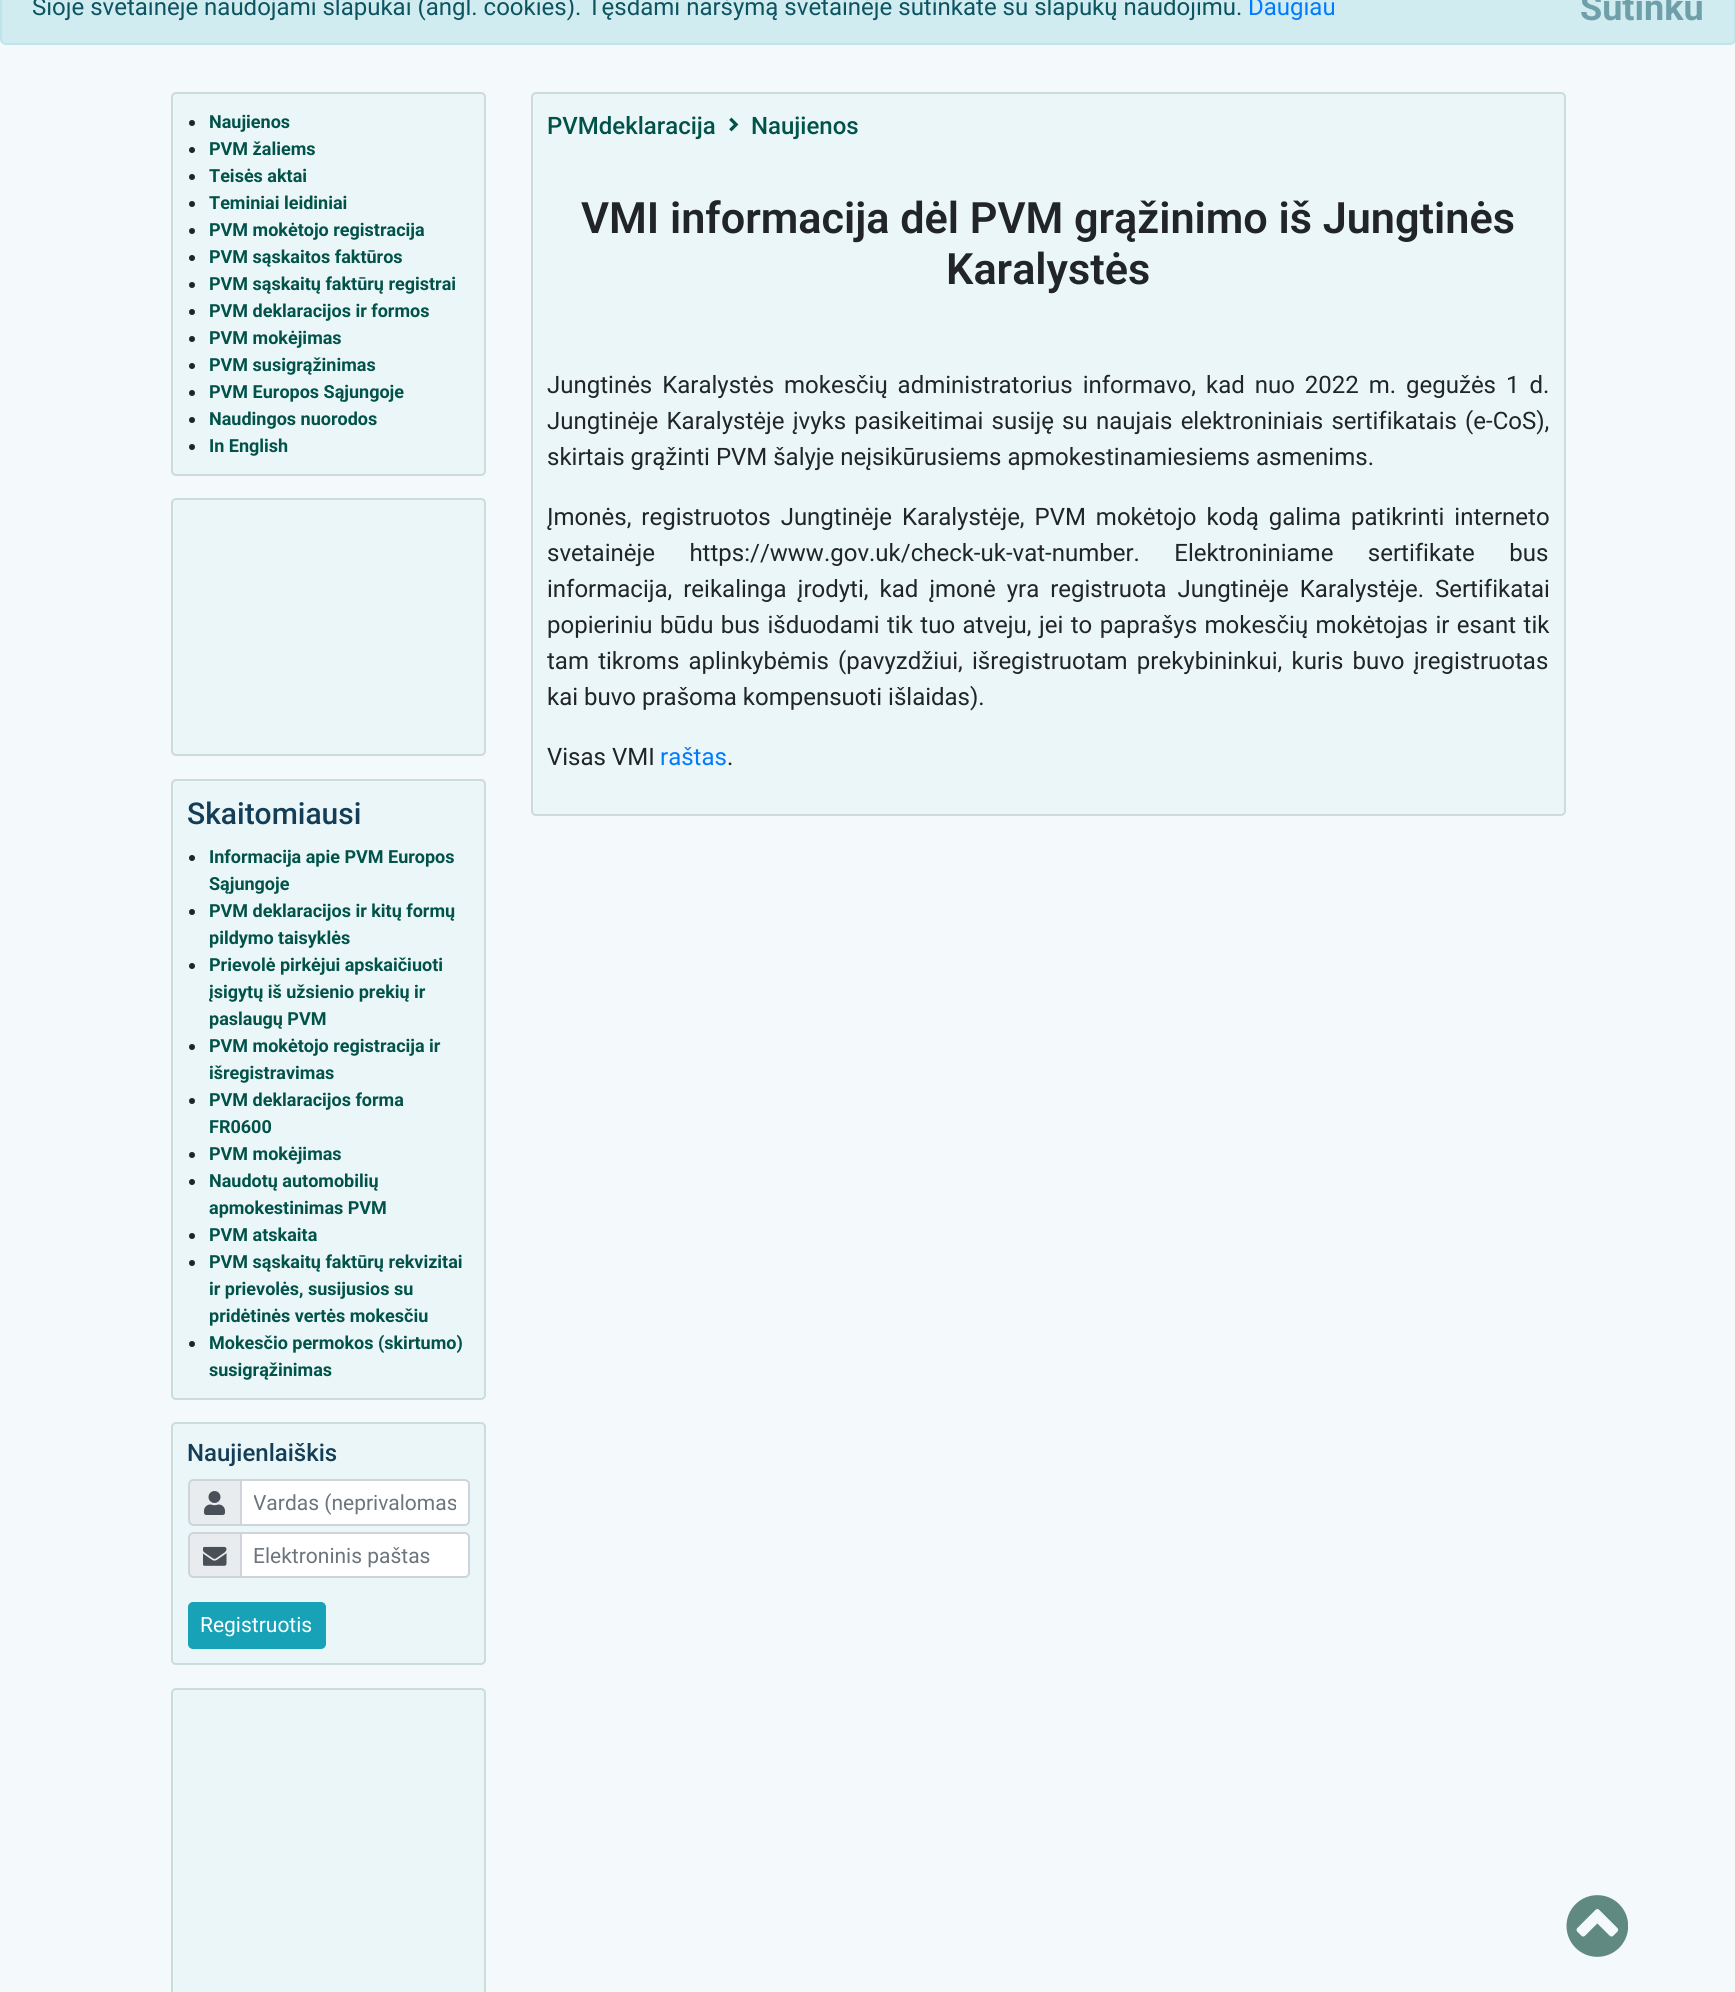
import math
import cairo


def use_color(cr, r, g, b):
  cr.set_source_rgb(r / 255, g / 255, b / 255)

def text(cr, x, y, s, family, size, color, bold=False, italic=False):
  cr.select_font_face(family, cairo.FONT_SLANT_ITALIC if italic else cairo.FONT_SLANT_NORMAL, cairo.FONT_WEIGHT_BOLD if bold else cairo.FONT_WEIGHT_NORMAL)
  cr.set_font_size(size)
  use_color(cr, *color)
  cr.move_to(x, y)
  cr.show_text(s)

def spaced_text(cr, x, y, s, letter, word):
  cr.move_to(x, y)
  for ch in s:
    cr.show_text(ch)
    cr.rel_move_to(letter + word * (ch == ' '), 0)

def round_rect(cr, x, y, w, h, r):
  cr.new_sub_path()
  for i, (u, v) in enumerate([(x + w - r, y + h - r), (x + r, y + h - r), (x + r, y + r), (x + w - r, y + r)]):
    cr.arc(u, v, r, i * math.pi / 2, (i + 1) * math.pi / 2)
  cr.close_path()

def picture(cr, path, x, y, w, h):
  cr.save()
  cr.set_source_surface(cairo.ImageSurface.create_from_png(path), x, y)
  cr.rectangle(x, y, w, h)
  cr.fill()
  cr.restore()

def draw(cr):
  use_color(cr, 244, 250, 251)
  cr.paint()
  use_color(cr, 209, 236, 241)
  round_rect(cr, 1, -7, 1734, 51, 5)
  cr.fill_preserve()
  use_color(cr, 190, 229, 235)
  cr.stroke()
  use_color(cr, 234, 246, 248)
  round_rect(cr, 172, 93, 313, 382, 4)
  cr.fill_preserve()
  use_color(cr, 204, 220, 218)
  cr.stroke()
  use_color(cr, 33, 37, 41)
  cr.arc(192, 123, 3, 0, 2 * math.pi)
  cr.fill()
  cr.arc(192, 150, 3, 0, 2 * math.pi)
  cr.fill()
  cr.arc(192, 177, 3, 0, 2 * math.pi)
  cr.fill()
  cr.arc(192, 204, 3, 0, 2 * math.pi)
  cr.fill()
  cr.arc(192, 231, 3, 0, 2 * math.pi)
  cr.fill()
  cr.arc(192, 258, 3, 0, 2 * math.pi)
  cr.fill()
  cr.arc(192, 285, 3, 0, 2 * math.pi)
  cr.fill()
  cr.arc(192, 312, 3, 0, 2 * math.pi)
  cr.fill()
  cr.arc(192, 339, 3, 0, 2 * math.pi)
  cr.fill()
  cr.arc(192, 366, 3, 0, 2 * math.pi)
  cr.fill()
  cr.arc(192, 393, 3, 0, 2 * math.pi)
  cr.fill()
  cr.arc(192, 420, 3, 0, 2 * math.pi)
  cr.fill()
  cr.arc(192, 447, 3, 0, 2 * math.pi)
  cr.fill()
  use_color(cr, 234, 246, 248)
  round_rect(cr, 172, 499, 313, 256, 4)
  cr.fill_preserve()
  use_color(cr, 204, 220, 218)
  cr.stroke()
  use_color(cr, 234, 246, 248)
  round_rect(cr, 172, 780, 313, 619, 4)
  cr.fill_preserve()
  use_color(cr, 204, 220, 218)
  cr.stroke()
  use_color(cr, 33, 37, 41)
  cr.arc(192, 858, 3, 0, 2 * math.pi)
  cr.fill()
  cr.arc(192, 912, 3, 0, 2 * math.pi)
  cr.fill()
  cr.arc(192, 966, 3, 0, 2 * math.pi)
  cr.fill()
  cr.arc(192, 1047, 3, 0, 2 * math.pi)
  cr.fill()
  cr.arc(192, 1101, 3, 0, 2 * math.pi)
  cr.fill()
  cr.arc(192, 1155, 3, 0, 2 * math.pi)
  cr.fill()
  cr.arc(192, 1182, 3, 0, 2 * math.pi)
  cr.fill()
  cr.arc(192, 1236, 3, 0, 2 * math.pi)
  cr.fill()
  cr.arc(192, 1263, 3, 0, 2 * math.pi)
  cr.fill()
  cr.arc(192, 1344, 3, 0, 2 * math.pi)
  cr.fill()
  use_color(cr, 234, 246, 248)
  round_rect(cr, 172, 1423, 313, 241, 4)
  cr.fill_preserve()
  use_color(cr, 204, 220, 218)
  cr.stroke()
  use_color(cr, 233, 236, 239)
  cr.new_path()
  cr.move_to(194, 1480)
  cr.line_to(241, 1480)
  cr.line_to(241, 1525)
  cr.line_to(194, 1525)
  cr.curve_to(191, 1525, 189, 1523, 189, 1520)
  cr.line_to(189, 1485)
  cr.curve_to(189, 1482, 191, 1480, 194, 1480)
  cr.close_path()
  cr.fill_preserve()
  use_color(cr, 206, 212, 218)
  cr.stroke()
  picture(cr, "img_01.png", 204, 1491, 21, 24)
  use_color(cr, 255, 255, 255)
  cr.new_path()
  cr.move_to(241, 1480)
  cr.line_to(465, 1480)
  cr.curve_to(467, 1480, 469, 1482, 469, 1484)
  cr.line_to(469, 1521)
  cr.curve_to(469, 1523, 467, 1525, 465, 1525)
  cr.line_to(241, 1525)
  cr.close_path()
  cr.fill_preserve()
  use_color(cr, 206, 212, 218)
  cr.stroke()
  use_color(cr, 233, 236, 239)
  cr.new_path()
  cr.move_to(194, 1533)
  cr.line_to(241, 1533)
  cr.line_to(241, 1577)
  cr.line_to(194, 1577)
  cr.curve_to(191, 1577, 189, 1575, 189, 1572)
  cr.line_to(189, 1538)
  cr.curve_to(189, 1535, 191, 1533, 194, 1533)
  cr.close_path()
  cr.fill_preserve()
  use_color(cr, 206, 212, 218)
  cr.stroke()
  picture(cr, "img_02.png", 203, 1546, 24, 20)
  use_color(cr, 255, 255, 255)
  cr.new_path()
  cr.move_to(241, 1533)
  cr.line_to(465, 1533)
  cr.curve_to(467, 1533, 469, 1535, 469, 1537)
  cr.line_to(469, 1573)
  cr.curve_to(469, 1575, 467, 1577, 465, 1577)
  cr.line_to(241, 1577)
  cr.close_path()
  cr.fill_preserve()
  use_color(cr, 206, 212, 218)
  cr.stroke()
  use_color(cr, 23, 162, 184)
  round_rect(cr, 189, 1603, 136, 45, 4)
  cr.fill_preserve()
  cr.stroke()
  use_color(cr, 234, 246, 248)
  round_rect(cr, 172, 1689, 313, 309, 4)
  cr.fill_preserve()
  use_color(cr, 204, 220, 218)
  cr.stroke()
  use_color(cr, 234, 246, 248)
  round_rect(cr, 532, 93, 1033, 722, 4)
  cr.fill_preserve()
  use_color(cr, 204, 220, 218)
  cr.stroke()
  picture(cr, "img_03.png", 729, 117, 10, 15)
  picture(cr, "img_04.png", 1566, 1895, 62, 62)
  text(cr, 32, 15, "Šioje svetainėje naudojami slapukai (angl. cookies). Tęsdami naršymą svetainėje sutinkate su slapukų naudojimu.", "Roboto", 24, (12, 84, 96))
  text(cr, 1248, 15, "Daugiau", "Roboto", 24, (0, 123, 255))
  text(cr, 1580, 20, "Sutinku", "Roboto", 36, (111, 160, 169), bold=True)
  text(cr, 209, 128, "Naujienos", "Roboto", 18, (1, 82, 73), bold=True)
  text(cr, 209, 155, "PVM žaliems", "Roboto", 18, (1, 82, 73), bold=True)
  text(cr, 209, 182, "Teisės aktai", "Roboto", 18, (1, 82, 73), bold=True)
  text(cr, 209, 209, "Teminiai leidiniai", "Roboto", 18, (1, 82, 73), bold=True)
  text(cr, 209, 236, "PVM mokėtojo registracija", "Roboto", 18, (1, 82, 73), bold=True)
  text(cr, 209, 263, "PVM sąskaitos faktūros", "Roboto", 18, (1, 82, 73), bold=True)
  text(cr, 209, 290, "PVM sąskaitų faktūrų registrai", "Roboto", 18, (1, 82, 73), bold=True)
  text(cr, 209, 317, "PVM deklaracijos ir formos", "Roboto", 18, (1, 82, 73), bold=True)
  text(cr, 209, 344, "PVM mokėjimas", "Roboto", 18, (1, 82, 73), bold=True)
  text(cr, 209, 371, "PVM susigrąžinimas", "Roboto", 18, (1, 82, 73), bold=True)
  text(cr, 209, 398, "PVM Europos Sąjungoje", "Roboto", 18, (1, 82, 73), bold=True)
  text(cr, 209, 425, "Naudingos nuorodos", "Roboto", 18, (1, 82, 73), bold=True)
  text(cr, 209, 452, "In English", "Roboto", 18, (1, 82, 73), bold=True)
  text(cr, 187, 824, "Skaitomiausi", "Roboto Medium", 30, (20, 62, 87))
  text(cr, 209, 863, "Informacija apie PVM Europos", "Roboto", 18, (1, 82, 73), bold=True)
  text(cr, 209, 890, "Sąjungoje", "Roboto", 18, (1, 82, 73), bold=True)
  text(cr, 209, 917, "PVM deklaracijos ir kitų formų", "Roboto", 18, (1, 82, 73), bold=True)
  text(cr, 209, 944, "pildymo taisyklės", "Roboto", 18, (1, 82, 73), bold=True)
  text(cr, 209, 971, "Prievolė pirkėjui apskaičiuoti", "Roboto", 18, (1, 82, 73), bold=True)
  text(cr, 209, 998, "įsigytų iš užsienio prekių ir", "Roboto", 18, (1, 82, 73), bold=True)
  text(cr, 209, 1025, "paslaugų PVM", "Roboto", 18, (1, 82, 73), bold=True)
  text(cr, 209, 1052, "PVM mokėtojo registracija ir", "Roboto", 18, (1, 82, 73), bold=True)
  text(cr, 209, 1079, "išregistravimas", "Roboto", 18, (1, 82, 73), bold=True)
  text(cr, 209, 1106, "PVM deklaracijos forma", "Roboto", 18, (1, 82, 73), bold=True)
  text(cr, 209, 1133, "FR0600", "Roboto", 18, (1, 82, 73), bold=True)
  text(cr, 209, 1160, "PVM mokėjimas", "Roboto", 18, (1, 82, 73), bold=True)
  text(cr, 209, 1187, "Naudotų automobilių", "Roboto", 18, (1, 82, 73), bold=True)
  text(cr, 209, 1214, "apmokestinimas PVM", "Roboto", 18, (1, 82, 73), bold=True)
  text(cr, 209, 1241, "PVM atskaita", "Roboto", 18, (1, 82, 73), bold=True)
  text(cr, 209, 1268, "PVM sąskaitų faktūrų rekvizitai", "Roboto", 18, (1, 82, 73), bold=True)
  text(cr, 209, 1295, "ir prievolės, susijusios su", "Roboto", 18, (1, 82, 73), bold=True)
  text(cr, 209, 1322, "pridėtinės vertės mokesčiu", "Roboto", 18, (1, 82, 73), bold=True)
  text(cr, 209, 1349, "Mokesčio permokos (skirtumo)", "Roboto", 18, (1, 82, 73), bold=True)
  text(cr, 209, 1376, "susigrąžinimas", "Roboto", 18, (1, 82, 73), bold=True)
  text(cr, 187, 1461, "Naujienlaiškis", "Roboto Medium", 24, (20, 62, 87))
  cr.save()
  cr.rectangle(254, 1491, 202, 24)
  cr.clip()
  text(cr, 253, 1510, "Vardas (neprivalomas", "Roboto", 21, (108, 117, 125))
  cr.restore()
  text(cr, 253, 1563, "Elektroninis paštas", "Roboto", 21, (108, 117, 125))
  text(cr, 200, 1632, "Registruotis", "Roboto", 21, (255, 255, 255))
  text(cr, 547, 134, "PVMdeklaracija", "Roboto Medium", 24, (1, 82, 73))
  text(cr, 751, 134, "Naujienos", "Roboto Medium", 24, (1, 82, 73))
  text(cr, 581, 233, "VMI informacija dėl PVM grąžinimo iš Jungtinės", "Roboto SemiBold", 43.2, (33, 37, 41))
  text(cr, 946, 284, "Karalystės", "Roboto SemiBold", 43.2, (33, 37, 41))
  cr.select_font_face("Roboto")
  cr.set_font_size(24)
  spaced_text(cr, 547, 393, "Jungtinės Karalystės mokesčių administratorius informavo, kad nuo 2022 m. gegužės 1 d.", 0, 4)
  spaced_text(cr, 547, 429, "Jungtinėje Karalystėje įvyks pasikeitimai susiję su naujais elektroniniais sertifikatais (e-CoS),", 0, 2.25)
  text(cr, 547, 465, "skirtais grąžinti PVM šalyje neįsikūrusiems apmokestinamiesiems asmenims.", "Roboto", 24, (33, 37, 41))
  spaced_text(cr, 547, 525, "Įmonės, registruotos Jungtinėje Karalystėje, PVM mokėtojo kodą galima patikrinti interneto", 0, 4)
  spaced_text(cr, 547, 561, "svetainėje https://www.gov.uk/check-uk-vat-number. Elektroniniame sertifikate bus", 0, 28.5)
  spaced_text(cr, 547, 597, "informacija, reikalinga įrodyti, kad įmonė yra registruota Jungtinėje Karalystėje. Sertifikatai", 0, 5)
  spaced_text(cr, 547, 633, "popieriniu būdu bus išduodami tik tuo atveju, jei to paprašys mokesčių mokėtojas ir esant tik", 0, 1.5)
  spaced_text(cr, 547, 669, "tam tikroms aplinkybėmis (pavyzdžiui, išregistruotam prekybininkui, kuris buvo įregistruotas", 0, 3.25)
  text(cr, 547, 705, "kai buvo prašoma kompensuoti išlaidas).", "Roboto", 24, (33, 37, 41))
  text(cr, 547, 765, "Visas VMI", "Roboto", 24, (33, 37, 41))
  text(cr, 660, 765, "raštas", "Roboto", 24, (0, 123, 255))
  text(cr, 727, 765, ".", "Roboto", 24, (33, 37, 41))


surface = cairo.ImageSurface(cairo.FORMAT_RGB24, 1735, 1992)
cr = cairo.Context(surface)
options = cairo.FontOptions()
options.set_hint_metrics(cairo.HINT_METRICS_OFF)
options.set_hint_style(cairo.HINT_STYLE_NONE)
cr.set_font_options(options)
cr.set_miter_limit(4)
draw(cr)
surface.write_to_png("out.png")
